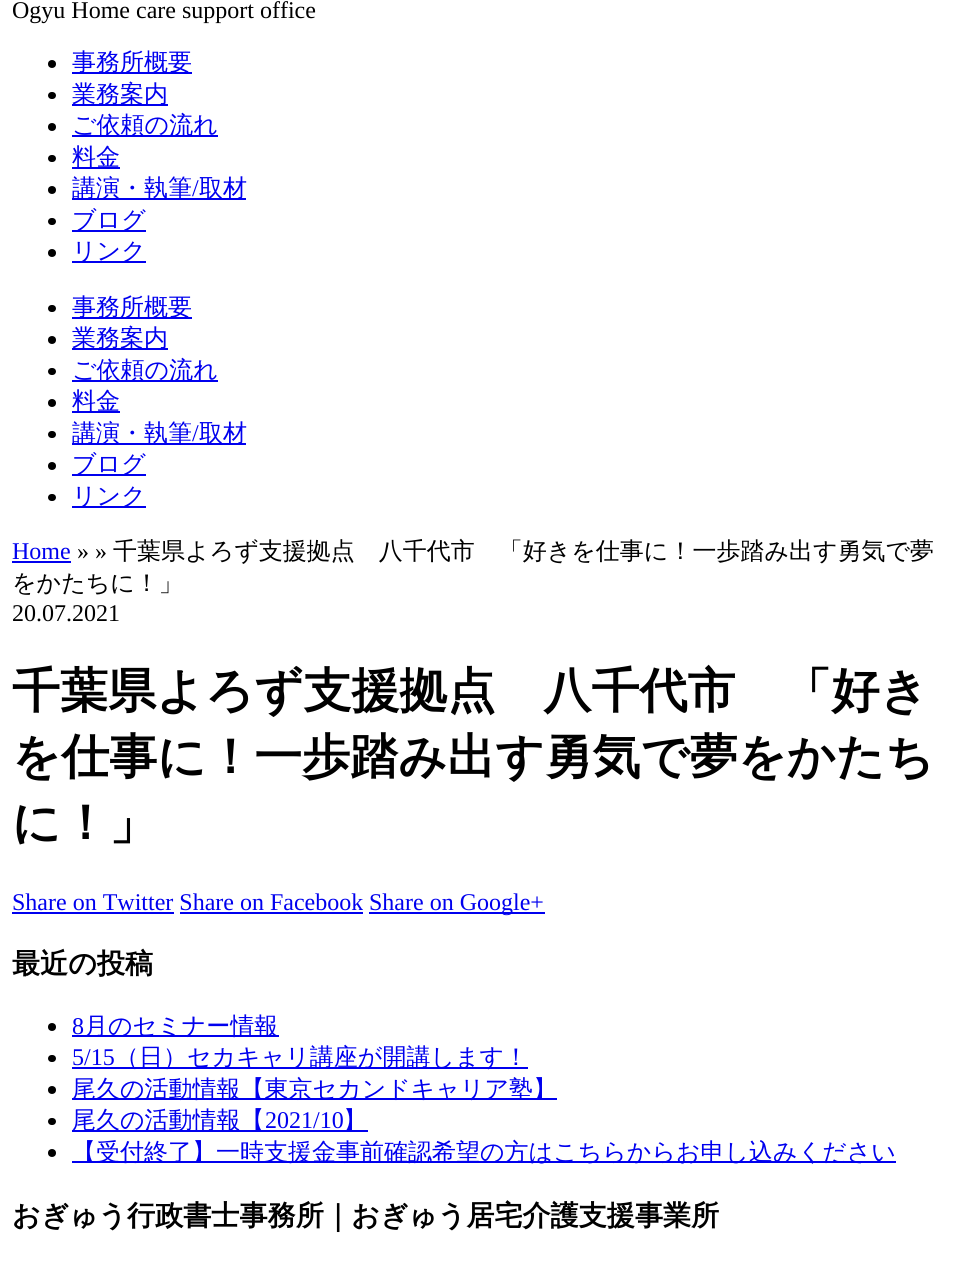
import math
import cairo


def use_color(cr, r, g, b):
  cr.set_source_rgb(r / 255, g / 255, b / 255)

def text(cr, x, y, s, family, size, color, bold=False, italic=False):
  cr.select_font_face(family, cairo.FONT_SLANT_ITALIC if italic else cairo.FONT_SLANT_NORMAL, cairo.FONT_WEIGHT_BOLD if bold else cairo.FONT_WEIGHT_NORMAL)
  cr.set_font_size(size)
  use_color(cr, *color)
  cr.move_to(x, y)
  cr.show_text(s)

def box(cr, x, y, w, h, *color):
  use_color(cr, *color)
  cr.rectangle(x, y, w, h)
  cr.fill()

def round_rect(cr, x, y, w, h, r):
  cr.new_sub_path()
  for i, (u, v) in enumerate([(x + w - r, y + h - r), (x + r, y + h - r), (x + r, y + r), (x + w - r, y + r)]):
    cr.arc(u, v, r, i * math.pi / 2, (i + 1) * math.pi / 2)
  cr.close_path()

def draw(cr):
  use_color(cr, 255, 255, 255)
  cr.paint()
  use_color(cr, 0, 0, 0)
  cr.arc(52, 64, 4, 0, 2 * math.pi)
  cr.fill()
  box(cr, 72, 72, 120, 2, 0, 0, 238)
  use_color(cr, 0, 0, 0)
  round_rect(cr, 48, 92, 8, 7, 3.5)
  cr.fill()
  box(cr, 72, 104, 96, 2, 0, 0, 238)
  use_color(cr, 0, 0, 0)
  cr.arc(52, 127, 4, 0, 2 * math.pi)
  cr.fill()
  box(cr, 72, 135, 146, 2, 0, 0, 238)
  use_color(cr, 0, 0, 0)
  round_rect(cr, 48, 155, 8, 7, 3.5)
  cr.fill()
  box(cr, 72, 167, 48, 2, 0, 0, 238)
  use_color(cr, 0, 0, 0)
  cr.arc(52, 190, 4, 0, 2 * math.pi)
  cr.fill()
  box(cr, 72, 198, 174, 2, 0, 0, 238)
  use_color(cr, 0, 0, 0)
  round_rect(cr, 48, 218, 8, 7, 3.5)
  cr.fill()
  box(cr, 72, 230, 74, 2, 0, 0, 238)
  use_color(cr, 0, 0, 0)
  cr.arc(52, 253, 4, 0, 2 * math.pi)
  cr.fill()
  box(cr, 72, 261, 74, 2, 0, 0, 238)
  use_color(cr, 0, 0, 0)
  round_rect(cr, 48, 305, 8, 7, 3.5)
  cr.fill()
  box(cr, 72, 317, 120, 2, 0, 0, 238)
  use_color(cr, 0, 0, 0)
  cr.arc(52, 340, 4, 0, 2 * math.pi)
  cr.fill()
  box(cr, 72, 348, 96, 2, 0, 0, 238)
  use_color(cr, 0, 0, 0)
  round_rect(cr, 48, 368, 8, 7, 3.5)
  cr.fill()
  box(cr, 72, 380, 146, 2, 0, 0, 238)
  use_color(cr, 0, 0, 0)
  cr.arc(52, 403, 4, 0, 2 * math.pi)
  cr.fill()
  box(cr, 72, 411, 48, 2, 0, 0, 238)
  use_color(cr, 0, 0, 0)
  round_rect(cr, 48, 431, 8, 7, 3.5)
  cr.fill()
  box(cr, 72, 443, 174, 2, 0, 0, 238)
  use_color(cr, 0, 0, 0)
  cr.arc(52, 466, 4, 0, 2 * math.pi)
  cr.fill()
  box(cr, 72, 474, 74, 2, 0, 0, 238)
  use_color(cr, 0, 0, 0)
  round_rect(cr, 48, 494, 8, 7, 3.5)
  cr.fill()
  box(cr, 72, 506, 74, 2, 0, 0, 238)
  box(cr, 12, 561, 59, 2, 0, 0, 238)
  box(cr, 12, 912, 162, 2, 0, 0, 238)
  box(cr, 369, 912, 176, 2, 0, 0, 238)
  box(cr, 180, 912, 183, 2, 0, 0, 238)
  use_color(cr, 0, 0, 0)
  cr.arc(52, 1027, 4, 0, 2 * math.pi)
  cr.fill()
  box(cr, 72, 1035, 207, 2, 0, 0, 238)
  use_color(cr, 0, 0, 0)
  round_rect(cr, 48, 1055, 8, 7, 3.5)
  cr.fill()
  box(cr, 72, 1067, 456, 2, 0, 0, 238)
  use_color(cr, 0, 0, 0)
  cr.arc(52, 1090, 4, 0, 2 * math.pi)
  cr.fill()
  box(cr, 72, 1098, 485, 2, 0, 0, 238)
  use_color(cr, 0, 0, 0)
  round_rect(cr, 48, 1118, 8, 7, 3.5)
  cr.fill()
  box(cr, 72, 1130, 296, 2, 0, 0, 238)
  use_color(cr, 0, 0, 0)
  cr.arc(52, 1153, 4, 0, 2 * math.pi)
  cr.fill()
  box(cr, 72, 1161, 824, 2, 0, 0, 238)
  text(cr, 12, 18, "Ogyu Home care support office", "Liberation Serif", 24, (0, 0, 0))
  text(cr, 72, 70, "事務所概要", "WenQuanYi Zen Hei Medium", 24, (0, 0, 238))
  text(cr, 72, 102, "業務案内", "WenQuanYi Zen Hei Medium", 24, (0, 0, 238))
  text(cr, 72, 133, "ご依頼の流れ", "WenQuanYi Zen Hei Medium", 24, (0, 0, 238))
  text(cr, 72, 165, "料金", "WenQuanYi Zen Hei Medium", 24, (0, 0, 238))
  text(cr, 72, 196, "講演・執筆", "WenQuanYi Zen Hei Medium", 24, (0, 0, 238))
  text(cr, 192, 196, "/", "Liberation Serif", 24, (0, 0, 238))
  text(cr, 199, 196, "取材", "WenQuanYi Zen Hei Medium", 24, (0, 0, 238))
  text(cr, 72, 228, "ブログ", "WenQuanYi Zen Hei Medium", 24, (0, 0, 238))
  text(cr, 72, 259, "リンク", "WenQuanYi Zen Hei Medium", 24, (0, 0, 238))
  text(cr, 72, 315, "事務所概要", "WenQuanYi Zen Hei Medium", 24, (0, 0, 238))
  text(cr, 72, 346, "業務案内", "WenQuanYi Zen Hei Medium", 24, (0, 0, 238))
  text(cr, 72, 378, "ご依頼の流れ", "WenQuanYi Zen Hei Medium", 24, (0, 0, 238))
  text(cr, 72, 409, "料金", "WenQuanYi Zen Hei Medium", 24, (0, 0, 238))
  text(cr, 72, 441, "講演・執筆", "WenQuanYi Zen Hei Medium", 24, (0, 0, 238))
  text(cr, 192, 441, "/", "Liberation Serif", 24, (0, 0, 238))
  text(cr, 199, 441, "取材", "WenQuanYi Zen Hei Medium", 24, (0, 0, 238))
  text(cr, 72, 472, "ブログ", "WenQuanYi Zen Hei Medium", 24, (0, 0, 238))
  text(cr, 72, 504, "リンク", "WenQuanYi Zen Hei Medium", 24, (0, 0, 238))
  text(cr, 12, 559, "Home", "Liberation Serif", 24, (0, 0, 238))
  text(cr, 77, 559, "» »", "Liberation Serif", 24, (0, 0, 0))
  text(cr, 113, 559, "千葉県よろず支援拠点　八千代市　「好きを仕事に！一歩踏み出す勇気で夢", "WenQuanYi Zen Hei Medium", 24, (0, 0, 0))
  text(cr, 12, 591, "をかたちに！」", "WenQuanYi Zen Hei Medium", 24, (0, 0, 0))
  text(cr, 12, 621, "20.07.2021", "Liberation Serif", 24, (0, 0, 0))
  text(cr, 12, 707, "千葉県よろず支援拠点　八千代市　「好き", "WenQuanYi Zen Hei", 48, (0, 0, 0), bold=True)
  text(cr, 12, 773, "を仕事に！一歩踏み出す勇気で夢をかたち", "WenQuanYi Zen Hei", 48, (0, 0, 0), bold=True)
  text(cr, 12, 839, "に！」", "WenQuanYi Zen Hei", 48, (0, 0, 0), bold=True)
  text(cr, 12, 910, "Share on Twitter Share on Facebook", "Liberation Serif", 24, (0, 0, 238))
  text(cr, 369, 910, "Share on Google+", "Liberation Serif", 24, (0, 0, 238))
  text(cr, 12, 973, "最近の投稿", "WenQuanYi Zen Hei", 28.1, (0, 0, 0), bold=True)
  text(cr, 72, 1034, "8", "Liberation Serif", 24, (0, 0, 238))
  text(cr, 84, 1034, "月のセミナー情報", "WenQuanYi Zen Hei Medium", 24, (0, 0, 238))
  text(cr, 72, 1065, "5/15", "Liberation Serif", 24, (0, 0, 238))
  text(cr, 115, 1065, "（日）セカキャリ講座が開講します！", "WenQuanYi Zen Hei Medium", 24, (0, 0, 238))
  text(cr, 72, 1097, "尾久の活動情報【東京セカンドキャリア塾】", "WenQuanYi Zen Hei Medium", 24, (0, 0, 238))
  text(cr, 72, 1128, "尾久の活動情報【", "WenQuanYi Zen Hei Medium", 24, (0, 0, 238))
  text(cr, 265, 1128, "2021/10", "Liberation Serif", 24, (0, 0, 238))
  text(cr, 343, 1128, "】", "WenQuanYi Zen Hei Medium", 24, (0, 0, 238))
  text(cr, 72, 1160, "【受付終了】一時支援金事前確認希望の方はこちらからお申し込みください", "WenQuanYi Zen Hei Medium", 24, (0, 0, 238))
  text(cr, 12, 1225, "おぎゅう行政書士事務所｜おぎゅう居宅介護支援事業所", "WenQuanYi Zen Hei", 28.1, (0, 0, 0), bold=True)


surface = cairo.ImageSurface(cairo.FORMAT_RGB24, 953, 1271)
cr = cairo.Context(surface)
options = cairo.FontOptions()
options.set_hint_metrics(cairo.HINT_METRICS_OFF)
options.set_hint_style(cairo.HINT_STYLE_NONE)
cr.set_font_options(options)
cr.set_miter_limit(4)
draw(cr)
surface.write_to_png("out.png")
